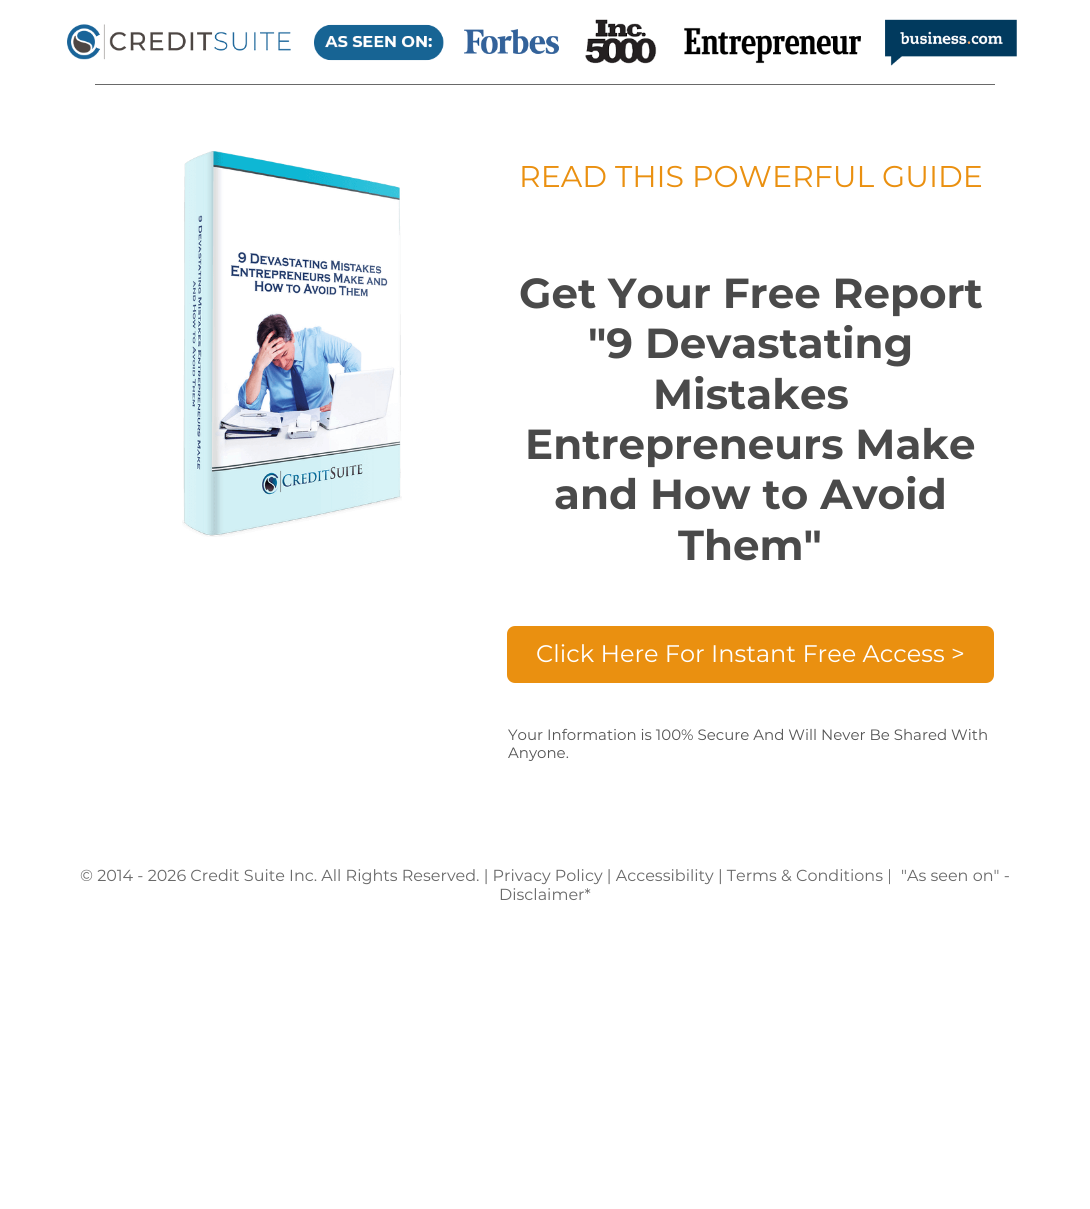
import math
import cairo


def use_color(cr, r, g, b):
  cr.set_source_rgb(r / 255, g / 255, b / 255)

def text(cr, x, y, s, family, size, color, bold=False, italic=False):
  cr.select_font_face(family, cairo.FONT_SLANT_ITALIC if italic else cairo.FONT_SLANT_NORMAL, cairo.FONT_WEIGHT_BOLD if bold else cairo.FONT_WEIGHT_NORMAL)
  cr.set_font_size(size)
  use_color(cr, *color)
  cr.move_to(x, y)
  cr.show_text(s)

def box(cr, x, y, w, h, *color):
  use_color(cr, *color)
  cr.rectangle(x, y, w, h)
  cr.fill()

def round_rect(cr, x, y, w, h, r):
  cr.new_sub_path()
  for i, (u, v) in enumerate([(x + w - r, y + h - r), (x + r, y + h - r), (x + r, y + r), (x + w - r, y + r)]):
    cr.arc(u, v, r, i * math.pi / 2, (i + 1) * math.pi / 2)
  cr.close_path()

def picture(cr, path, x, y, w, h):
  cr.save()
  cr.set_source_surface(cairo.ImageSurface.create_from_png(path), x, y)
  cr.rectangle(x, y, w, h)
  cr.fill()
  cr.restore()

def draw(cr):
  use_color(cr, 255, 255, 255)
  cr.paint()
  picture(cr, "img_01.png", 67, 19, 950, 47)
  box(cr, 95, 84, 900, 1, 105, 105, 105)
  picture(cr, "img_02.png", 182, 151, 220, 386)
  use_color(cr, 234, 144, 16)
  round_rect(cr, 507, 626, 487, 57, 8)
  cr.fill()
  text(cr, 519, 187, "READ THIS POWERFUL GUIDE", "Montserrat", 30, (234, 144, 16))
  text(cr, 519, 308, "Get Your Free Report", "Montserrat", 42, (74, 74, 74), bold=True)
  text(cr, 588, 358, "\"9 Devastating", "Montserrat", 42, (74, 74, 74), bold=True)
  text(cr, 653, 409, "Mistakes", "Montserrat", 42, (74, 74, 74), bold=True)
  text(cr, 525, 459, "Entrepreneurs Make", "Montserrat", 42, (74, 74, 74), bold=True)
  text(cr, 554, 509, "and How to Avoid", "Montserrat", 42, (74, 74, 74), bold=True)
  text(cr, 678, 560, "Them\"", "Montserrat", 42, (74, 74, 74), bold=True)
  text(cr, 536, 662, "Click Here For Instant Free Access >", "Montserrat", 24, (255, 255, 255))
  text(cr, 508, 740, "Your Information is 100% Secure And Will Never Be Shared With", "Montserrat", 15, (84, 84, 84))
  text(cr, 508, 758, "Anyone.", "Montserrat", 15, (84, 84, 84))
  text(cr, 80, 881, "© 2014 - 2026 Credit Suite Inc. All Rights Reserved. | Privacy Policy | Accessibility | Terms & Conditions |", "Montserrat", 16, (105, 105, 105))
  text(cr, 901, 881, "\"As seen on\" -", "Montserrat", 16, (105, 105, 105))
  text(cr, 499, 900, "Disclaimer*", "Montserrat", 16, (105, 105, 105))


surface = cairo.ImageSurface(cairo.FORMAT_RGB24, 1090, 1209)
cr = cairo.Context(surface)
options = cairo.FontOptions()
options.set_hint_metrics(cairo.HINT_METRICS_OFF)
options.set_hint_style(cairo.HINT_STYLE_NONE)
cr.set_font_options(options)
cr.set_miter_limit(4)
draw(cr)
surface.write_to_png("out.png")
